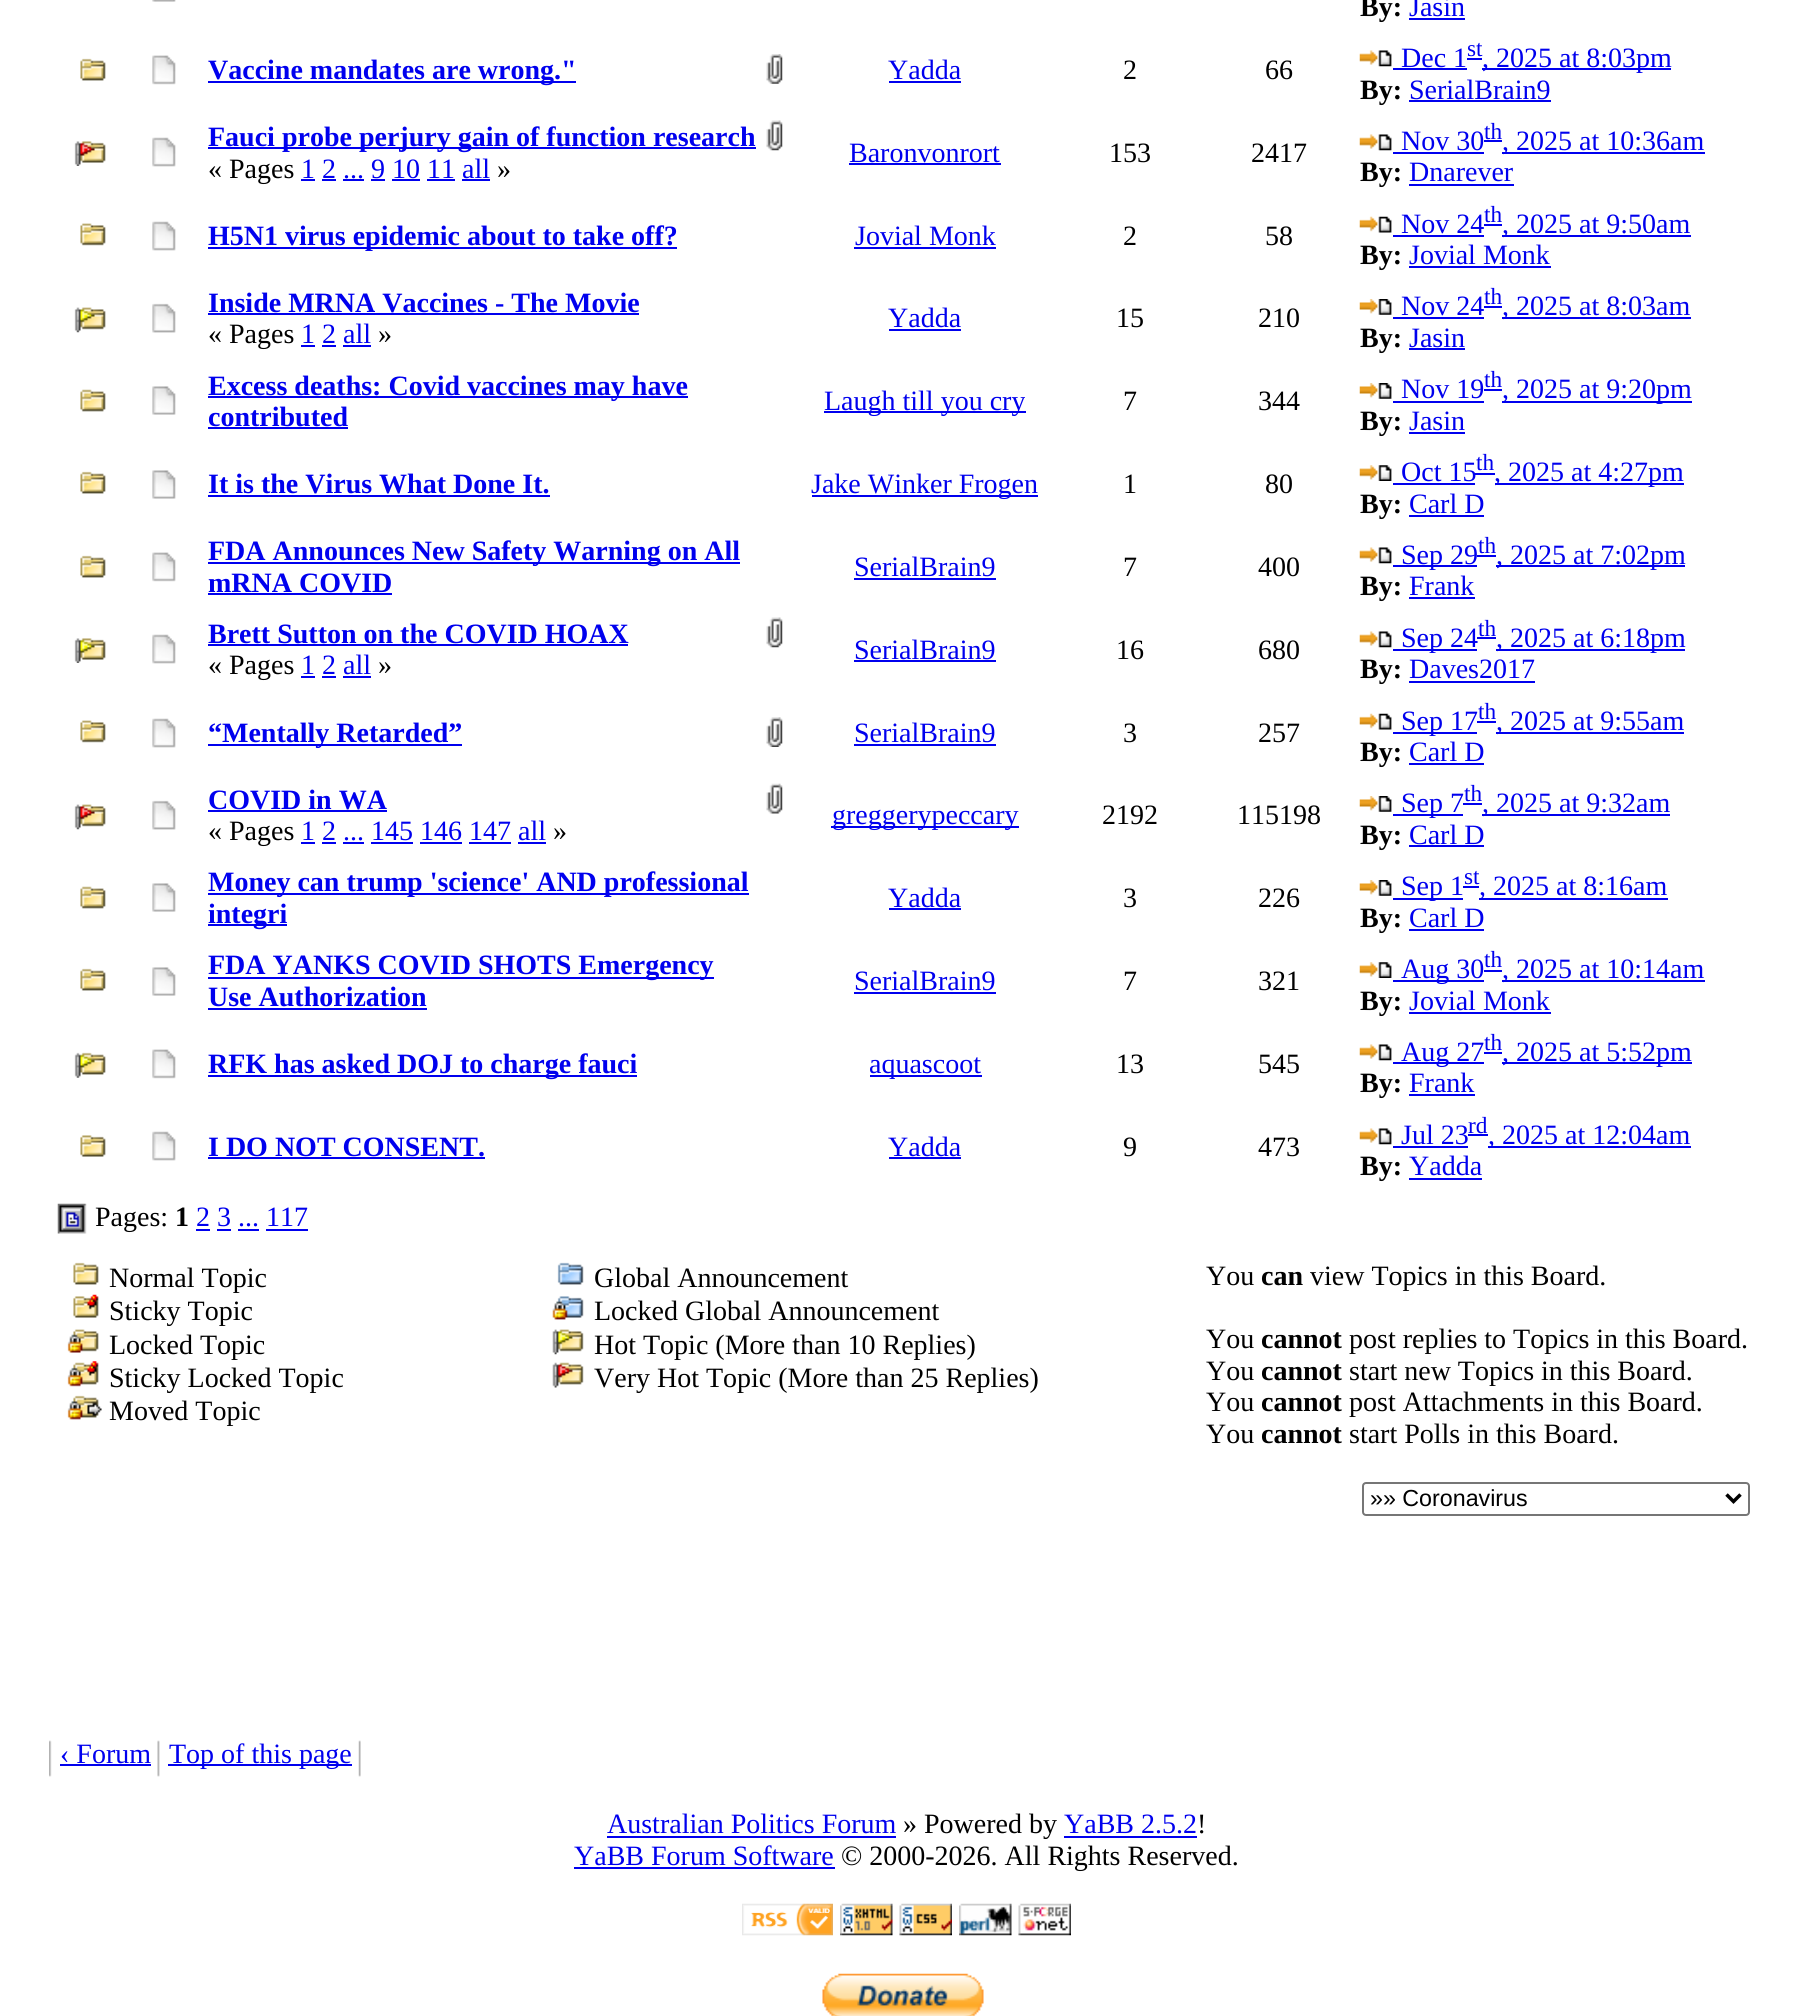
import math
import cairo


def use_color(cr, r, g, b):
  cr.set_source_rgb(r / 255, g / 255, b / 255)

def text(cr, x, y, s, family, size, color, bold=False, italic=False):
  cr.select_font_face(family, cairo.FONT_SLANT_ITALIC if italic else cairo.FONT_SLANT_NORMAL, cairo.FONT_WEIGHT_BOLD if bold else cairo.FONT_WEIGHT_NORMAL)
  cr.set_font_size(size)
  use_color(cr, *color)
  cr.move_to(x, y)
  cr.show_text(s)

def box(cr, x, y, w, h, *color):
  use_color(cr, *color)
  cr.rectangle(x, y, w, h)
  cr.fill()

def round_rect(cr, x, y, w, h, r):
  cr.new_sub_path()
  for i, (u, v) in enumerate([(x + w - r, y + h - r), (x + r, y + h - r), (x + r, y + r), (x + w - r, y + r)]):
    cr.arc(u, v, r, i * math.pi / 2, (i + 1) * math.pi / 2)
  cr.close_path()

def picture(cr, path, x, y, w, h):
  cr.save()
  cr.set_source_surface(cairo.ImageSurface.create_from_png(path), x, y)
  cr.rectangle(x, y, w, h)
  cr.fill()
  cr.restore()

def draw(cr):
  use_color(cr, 255, 255, 255)
  cr.paint()
  picture(cr, "img_01.png", 152, 0, 24, 2)
  box(cr, 1409, 18, 56, 2, 0, 0, 238)
  picture(cr, "img_02.png", 80, 58, 26, 23)
  picture(cr, "img_03.png", 152, 55, 24, 30)
  box(cr, 208, 81, 368, 2, 0, 0, 238)
  picture(cr, "img_04.png", 766, 54, 17, 30)
  box(cr, 889, 81, 72, 2, 0, 0, 238)
  picture(cr, "img_05.png", 1359, 50, 33, 17)
  box(cr, 1393, 68, 74, 2, 0, 0, 238)
  box(cr, 1467, 58, 15, 2, 0, 0, 238)
  box(cr, 1482, 68, 189, 2, 0, 0, 238)
  box(cr, 1409, 100, 142, 2, 0, 0, 238)
  picture(cr, "img_06.png", 74, 141, 32, 25)
  picture(cr, "img_07.png", 152, 137, 24, 30)
  box(cr, 208, 147, 548, 2, 0, 0, 238)
  box(cr, 301, 179, 14, 2, 0, 0, 238)
  box(cr, 322, 179, 14, 2, 0, 0, 238)
  box(cr, 343, 179, 21, 2, 0, 0, 238)
  box(cr, 371, 179, 14, 2, 0, 0, 238)
  box(cr, 392, 179, 28, 2, 0, 0, 238)
  box(cr, 427, 179, 28, 2, 0, 0, 238)
  box(cr, 462, 179, 28, 2, 0, 0, 238)
  picture(cr, "img_08.png", 766, 120, 17, 31)
  box(cr, 849, 163, 152, 2, 0, 0, 238)
  picture(cr, "img_05.png", 1359, 134, 33, 17)
  box(cr, 1393, 152, 91, 2, 0, 0, 238)
  box(cr, 1484, 140, 18, 2, 0, 0, 238)
  box(cr, 1502, 152, 203, 2, 0, 0, 238)
  box(cr, 1409, 184, 105, 2, 0, 0, 238)
  picture(cr, "img_09.png", 80, 223, 26, 23)
  picture(cr, "img_07.png", 152, 221, 24, 30)
  box(cr, 208, 247, 469, 2, 0, 0, 238)
  box(cr, 854, 247, 142, 2, 0, 0, 238)
  picture(cr, "img_10.png", 1359, 216, 33, 17)
  box(cr, 1393, 235, 91, 2, 0, 0, 238)
  box(cr, 1484, 224, 18, 2, 0, 0, 238)
  box(cr, 1502, 235, 189, 2, 0, 0, 238)
  box(cr, 1409, 266, 142, 2, 0, 0, 238)
  picture(cr, "img_11.png", 74, 307, 32, 26)
  picture(cr, "img_12.png", 152, 303, 24, 30)
  box(cr, 208, 313, 431, 2, 0, 0, 238)
  box(cr, 301, 345, 14, 2, 0, 0, 238)
  box(cr, 322, 345, 14, 2, 0, 0, 238)
  box(cr, 343, 345, 28, 2, 0, 0, 238)
  box(cr, 889, 329, 72, 2, 0, 0, 238)
  picture(cr, "img_13.png", 1359, 299, 33, 16)
  box(cr, 1393, 317, 91, 2, 0, 0, 238)
  box(cr, 1484, 306, 18, 2, 0, 0, 238)
  box(cr, 1502, 317, 189, 2, 0, 0, 238)
  box(cr, 1409, 348, 56, 2, 0, 0, 238)
  picture(cr, "img_14.png", 80, 389, 26, 23)
  picture(cr, "img_15.png", 152, 386, 24, 29)
  box(cr, 208, 396, 480, 2, 0, 0, 238)
  box(cr, 208, 427, 140, 2, 0, 0, 238)
  box(cr, 824, 411, 202, 2, 0, 0, 238)
  picture(cr, "img_13.png", 1359, 383, 33, 16)
  box(cr, 1393, 401, 91, 2, 0, 0, 238)
  box(cr, 1484, 389, 18, 2, 0, 0, 238)
  box(cr, 1502, 401, 190, 2, 0, 0, 238)
  box(cr, 1409, 432, 56, 2, 0, 0, 238)
  picture(cr, "img_02.png", 80, 471, 26, 23)
  picture(cr, "img_15.png", 152, 470, 24, 29)
  box(cr, 208, 495, 342, 2, 0, 0, 238)
  box(cr, 812, 495, 226, 2, 0, 0, 238)
  picture(cr, "img_16.png", 1359, 465, 33, 16)
  box(cr, 1393, 483, 82, 2, 0, 0, 238)
  box(cr, 1475, 473, 20, 2, 0, 0, 238)
  box(cr, 1495, 483, 189, 2, 0, 0, 238)
  box(cr, 1409, 515, 75, 2, 0, 0, 238)
  picture(cr, "img_02.png", 80, 555, 26, 23)
  picture(cr, "img_03.png", 152, 552, 24, 30)
  box(cr, 208, 562, 532, 2, 0, 0, 238)
  box(cr, 208, 593, 184, 2, 0, 0, 238)
  box(cr, 854, 578, 142, 2, 0, 0, 238)
  picture(cr, "img_05.png", 1359, 547, 33, 17)
  box(cr, 1393, 565, 84, 2, 0, 0, 238)
  box(cr, 1477, 555, 19, 2, 0, 0, 238)
  box(cr, 1496, 565, 189, 2, 0, 0, 238)
  box(cr, 1409, 597, 66, 2, 0, 0, 238)
  picture(cr, "img_17.png", 74, 638, 32, 25)
  picture(cr, "img_07.png", 152, 634, 24, 30)
  box(cr, 208, 644, 420, 2, 0, 0, 238)
  box(cr, 301, 676, 14, 2, 0, 0, 238)
  box(cr, 322, 676, 14, 2, 0, 0, 238)
  box(cr, 343, 676, 28, 2, 0, 0, 238)
  picture(cr, "img_08.png", 766, 617, 17, 31)
  box(cr, 854, 660, 142, 2, 0, 0, 238)
  picture(cr, "img_05.png", 1359, 631, 33, 17)
  box(cr, 1393, 649, 84, 2, 0, 0, 238)
  box(cr, 1477, 637, 19, 2, 0, 0, 238)
  box(cr, 1496, 649, 189, 2, 0, 0, 238)
  box(cr, 1409, 681, 126, 2, 0, 0, 238)
  picture(cr, "img_09.png", 80, 720, 26, 23)
  picture(cr, "img_07.png", 152, 718, 24, 30)
  box(cr, 208, 744, 254, 2, 0, 0, 238)
  picture(cr, "img_18.png", 766, 717, 17, 30)
  box(cr, 854, 744, 142, 2, 0, 0, 238)
  picture(cr, "img_10.png", 1359, 713, 33, 17)
  box(cr, 1393, 732, 84, 2, 0, 0, 238)
  box(cr, 1477, 721, 19, 2, 0, 0, 238)
  box(cr, 1496, 732, 188, 2, 0, 0, 238)
  box(cr, 1409, 763, 75, 2, 0, 0, 238)
  picture(cr, "img_19.png", 74, 804, 32, 26)
  picture(cr, "img_12.png", 152, 800, 24, 30)
  box(cr, 208, 810, 179, 2, 0, 0, 238)
  box(cr, 301, 842, 14, 2, 0, 0, 238)
  box(cr, 322, 842, 14, 2, 0, 0, 238)
  box(cr, 343, 842, 21, 2, 0, 0, 238)
  box(cr, 371, 842, 42, 2, 0, 0, 238)
  box(cr, 420, 842, 42, 2, 0, 0, 238)
  box(cr, 469, 842, 42, 2, 0, 0, 238)
  box(cr, 518, 842, 28, 2, 0, 0, 238)
  picture(cr, "img_20.png", 766, 783, 17, 31)
  box(cr, 831, 826, 188, 2, 0, 0, 238)
  picture(cr, "img_13.png", 1359, 796, 33, 16)
  box(cr, 1393, 814, 70, 2, 0, 0, 238)
  box(cr, 1463, 803, 19, 2, 0, 0, 238)
  box(cr, 1482, 814, 188, 2, 0, 0, 238)
  box(cr, 1409, 845, 75, 2, 0, 0, 238)
  picture(cr, "img_14.png", 80, 886, 26, 23)
  picture(cr, "img_15.png", 152, 883, 24, 29)
  box(cr, 208, 893, 541, 2, 0, 0, 238)
  box(cr, 208, 924, 79, 2, 0, 0, 238)
  box(cr, 889, 908, 72, 2, 0, 0, 238)
  picture(cr, "img_13.png", 1359, 880, 33, 16)
  box(cr, 1393, 898, 70, 2, 0, 0, 238)
  box(cr, 1463, 886, 16, 2, 0, 0, 238)
  box(cr, 1479, 898, 189, 2, 0, 0, 238)
  box(cr, 1409, 929, 75, 2, 0, 0, 238)
  picture(cr, "img_02.png", 80, 968, 26, 23)
  picture(cr, "img_15.png", 152, 967, 24, 29)
  box(cr, 208, 977, 506, 2, 0, 0, 238)
  box(cr, 208, 1008, 219, 2, 0, 0, 238)
  box(cr, 854, 992, 142, 2, 0, 0, 238)
  picture(cr, "img_16.png", 1359, 962, 33, 16)
  box(cr, 1393, 980, 91, 2, 0, 0, 238)
  box(cr, 1484, 970, 18, 2, 0, 0, 238)
  box(cr, 1502, 980, 203, 2, 0, 0, 238)
  box(cr, 1409, 1012, 142, 2, 0, 0, 238)
  picture(cr, "img_21.png", 74, 1052, 32, 26)
  picture(cr, "img_03.png", 152, 1049, 24, 30)
  box(cr, 208, 1075, 429, 2, 0, 0, 238)
  box(cr, 870, 1075, 112, 2, 0, 0, 238)
  picture(cr, "img_05.png", 1359, 1044, 33, 17)
  box(cr, 1393, 1062, 91, 2, 0, 0, 238)
  box(cr, 1484, 1052, 18, 2, 0, 0, 238)
  box(cr, 1502, 1062, 190, 2, 0, 0, 238)
  box(cr, 1409, 1094, 66, 2, 0, 0, 238)
  picture(cr, "img_22.png", 80, 1135, 26, 22)
  picture(cr, "img_07.png", 152, 1131, 24, 30)
  box(cr, 208, 1157, 277, 2, 0, 0, 238)
  box(cr, 889, 1157, 72, 2, 0, 0, 238)
  picture(cr, "img_05.png", 1359, 1128, 33, 17)
  box(cr, 1393, 1146, 75, 2, 0, 0, 238)
  box(cr, 1468, 1134, 20, 2, 0, 0, 238)
  box(cr, 1488, 1146, 203, 2, 0, 0, 238)
  box(cr, 1409, 1178, 73, 2, 0, 0, 238)
  picture(cr, "img_23.png", 57, 1203, 30, 31)
  box(cr, 196, 1229, 14, 2, 0, 0, 238)
  box(cr, 217, 1229, 14, 2, 0, 0, 238)
  box(cr, 238, 1229, 21, 2, 0, 0, 238)
  box(cr, 266, 1229, 42, 2, 0, 0, 238)
  picture(cr, "img_02.png", 73, 1262, 26, 23)
  picture(cr, "img_24.png", 73, 1294, 26, 24)
  picture(cr, "img_25.png", 67, 1329, 32, 24)
  picture(cr, "img_26.png", 67, 1361, 32, 26)
  picture(cr, "img_27.png", 67, 1395, 35, 25)
  picture(cr, "img_28.png", 557, 1262, 27, 23)
  picture(cr, "img_29.png", 552, 1296, 32, 24)
  picture(cr, "img_30.png", 552, 1329, 32, 26)
  picture(cr, "img_31.png", 552, 1362, 32, 26)
  round_rect(cr, 1363, 1483, 386, 32, 3)
  use_color(cr, 118, 118, 118)
  cr.stroke()
  cr.new_path()
  cr.move_to(1726.5, 1494.5)
  cr.line_to(1733.5, 1501.5)
  cr.line_to(1740.5, 1494.5)
  use_color(cr, 0, 0, 0)
  cr.set_line_width(3.5)
  cr.stroke()
  picture(cr, "img_32.png", 49, 1740, 3, 37)
  box(cr, 60, 1764, 91, 2, 0, 0, 238)
  picture(cr, "img_33.png", 157, 1740, 3, 37)
  box(cr, 168, 1764, 184, 2, 0, 0, 238)
  picture(cr, "img_34.png", 358, 1740, 3, 37)
  box(cr, 607, 1836, 289, 2, 0, 0, 238)
  box(cr, 1064, 1836, 133, 2, 0, 0, 238)
  box(cr, 574, 1867, 261, 2, 0, 0, 238)
  picture(cr, "img_35.png", 742, 1903, 91, 33)
  picture(cr, "img_36.png", 840, 1903, 53, 33)
  picture(cr, "img_37.png", 899, 1903, 53, 33)
  picture(cr, "img_38.png", 959, 1903, 53, 33)
  picture(cr, "img_39.png", 1018, 1903, 53, 33)
  picture(cr, "img_40.png", 822, 1973, 162, 43)
  text(cr, 1360, 16, "By:", "Liberation Serif", 28, (0, 0, 0), bold=True)
  text(cr, 1409, 16, "Jasin", "Liberation Serif", 28, (0, 0, 238))
  text(cr, 208, 79, "Vaccine mandates are wrong.\"", "Liberation Serif", 28, (0, 0, 238), bold=True)
  text(cr, 888, 79, "Yadda", "Liberation Serif", 28, (0, 0, 238))
  text(cr, 1123, 79, "2", "Liberation Serif", 28, (0, 0, 0))
  text(cr, 1265, 79, "66", "Liberation Serif", 28, (0, 0, 0))
  text(cr, 1401, 67, "Dec 1", "Liberation Serif", 28, (0, 0, 238))
  text(cr, 1467, 56, "st", "Liberation Serif", 23.25, (0, 0, 238))
  text(cr, 1482, 67, ", 2025 at 8:03pm", "Liberation Serif", 28, (0, 0, 238))
  text(cr, 1360, 99, "By:", "Liberation Serif", 28, (0, 0, 0), bold=True)
  text(cr, 1409, 99, "SerialBrain9", "Liberation Serif", 28, (0, 0, 238))
  text(cr, 208, 146, "Fauci probe perjury gain of function research", "Liberation Serif", 28, (0, 0, 238), bold=True)
  text(cr, 208, 178, "« Pages", "Liberation Serif", 28, (0, 0, 0))
  text(cr, 301, 178, "1 2 ... 9 10 11 all", "Liberation Serif", 28, (0, 0, 238))
  text(cr, 497, 178, "»", "Liberation Serif", 28, (0, 0, 0))
  text(cr, 849, 162, "Baronvonrort", "Liberation Serif", 28, (0, 0, 238))
  text(cr, 1109, 162, "153", "Liberation Serif", 28, (0, 0, 0))
  text(cr, 1251, 162, "2417", "Liberation Serif", 28, (0, 0, 0))
  text(cr, 1401, 150, "Nov 30", "Liberation Serif", 28, (0, 0, 238))
  text(cr, 1484, 139, "th", "Liberation Serif", 23.25, (0, 0, 238))
  text(cr, 1502, 150, ", 2025 at 10:36am", "Liberation Serif", 28, (0, 0, 238))
  text(cr, 1360, 181, "By:", "Liberation Serif", 28, (0, 0, 0), bold=True)
  text(cr, 1409, 181, "Dnarever", "Liberation Serif", 28, (0, 0, 238))
  text(cr, 208, 245, "H5N1 virus epidemic about to take off?", "Liberation Serif", 28, (0, 0, 238), bold=True)
  text(cr, 855, 245, "Jovial Monk", "Liberation Serif", 28, (0, 0, 238))
  text(cr, 1123, 245, "2", "Liberation Serif", 28, (0, 0, 0))
  text(cr, 1265, 245, "58", "Liberation Serif", 28, (0, 0, 0))
  text(cr, 1401, 233, "Nov 24", "Liberation Serif", 28, (0, 0, 238))
  text(cr, 1484, 222, "th", "Liberation Serif", 23.25, (0, 0, 238))
  text(cr, 1502, 233, ", 2025 at 9:50am", "Liberation Serif", 28, (0, 0, 238))
  text(cr, 1360, 264, "By:", "Liberation Serif", 28, (0, 0, 0), bold=True)
  text(cr, 1409, 264, "Jovial Monk", "Liberation Serif", 28, (0, 0, 238))
  text(cr, 208, 312, "Inside MRNA Vaccines - The Movie", "Liberation Serif", 28, (0, 0, 238), bold=True)
  text(cr, 208, 343, "« Pages", "Liberation Serif", 28, (0, 0, 0))
  text(cr, 301, 343, "1 2 all", "Liberation Serif", 28, (0, 0, 238))
  text(cr, 378, 343, "»", "Liberation Serif", 28, (0, 0, 0))
  text(cr, 888, 327, "Yadda", "Liberation Serif", 28, (0, 0, 238))
  text(cr, 1116, 327, "15", "Liberation Serif", 28, (0, 0, 0))
  text(cr, 1258, 327, "210", "Liberation Serif", 28, (0, 0, 0))
  text(cr, 1401, 315, "Nov 24", "Liberation Serif", 28, (0, 0, 238))
  text(cr, 1484, 304, "th", "Liberation Serif", 23.25, (0, 0, 238))
  text(cr, 1502, 315, ", 2025 at 8:03am", "Liberation Serif", 28, (0, 0, 238))
  text(cr, 1360, 347, "By:", "Liberation Serif", 28, (0, 0, 0), bold=True)
  text(cr, 1409, 347, "Jasin", "Liberation Serif", 28, (0, 0, 238))
  text(cr, 208, 395, "Excess deaths: Covid vaccines may have", "Liberation Serif", 28, (0, 0, 238), bold=True)
  text(cr, 208, 426, "contributed", "Liberation Serif", 28, (0, 0, 238), bold=True)
  text(cr, 824, 410, "Laugh till you cry", "Liberation Serif", 28, (0, 0, 238))
  text(cr, 1123, 410, "7", "Liberation Serif", 28, (0, 0, 0))
  text(cr, 1258, 410, "344", "Liberation Serif", 28, (0, 0, 0))
  text(cr, 1401, 398, "Nov 19", "Liberation Serif", 28, (0, 0, 238))
  text(cr, 1484, 387, "th", "Liberation Serif", 23.25, (0, 0, 238))
  text(cr, 1502, 398, ", 2025 at 9:20pm", "Liberation Serif", 28, (0, 0, 238))
  text(cr, 1360, 430, "By:", "Liberation Serif", 28, (0, 0, 0), bold=True)
  text(cr, 1409, 430, "Jasin", "Liberation Serif", 28, (0, 0, 238))
  text(cr, 208, 493, "It is the Virus What Done It.", "Liberation Serif", 28, (0, 0, 238), bold=True)
  text(cr, 811, 493, "Jake Winker Frogen", "Liberation Serif", 28, (0, 0, 238))
  text(cr, 1123, 493, "1", "Liberation Serif", 28, (0, 0, 0))
  text(cr, 1265, 493, "80", "Liberation Serif", 28, (0, 0, 0))
  text(cr, 1401, 481, "Oct 15", "Liberation Serif", 28, (0, 0, 238))
  text(cr, 1476, 470, "th", "Liberation Serif", 23.25, (0, 0, 238))
  text(cr, 1494, 481, ", 2025 at 4:27pm", "Liberation Serif", 28, (0, 0, 238))
  text(cr, 1360, 513, "By:", "Liberation Serif", 28, (0, 0, 0), bold=True)
  text(cr, 1409, 513, "Carl D", "Liberation Serif", 28, (0, 0, 238))
  text(cr, 208, 560, "FDA Announces New Safety Warning on All", "Liberation Serif", 28, (0, 0, 238), bold=True)
  text(cr, 208, 592, "mRNA COVID", "Liberation Serif", 28, (0, 0, 238), bold=True)
  text(cr, 854, 576, "SerialBrain9", "Liberation Serif", 28, (0, 0, 238))
  text(cr, 1123, 576, "7", "Liberation Serif", 28, (0, 0, 0))
  text(cr, 1258, 576, "400", "Liberation Serif", 28, (0, 0, 0))
  text(cr, 1401, 564, "Sep 29", "Liberation Serif", 28, (0, 0, 238))
  text(cr, 1478, 553, "th", "Liberation Serif", 23.25, (0, 0, 238))
  text(cr, 1496, 564, ", 2025 at 7:02pm", "Liberation Serif", 28, (0, 0, 238))
  text(cr, 1360, 595, "By:", "Liberation Serif", 28, (0, 0, 0), bold=True)
  text(cr, 1409, 595, "Frank", "Liberation Serif", 28, (0, 0, 238))
  text(cr, 208, 643, "Brett Sutton on the COVID HOAX", "Liberation Serif", 28, (0, 0, 238), bold=True)
  text(cr, 208, 674, "« Pages", "Liberation Serif", 28, (0, 0, 0))
  text(cr, 301, 674, "1 2 all", "Liberation Serif", 28, (0, 0, 238))
  text(cr, 378, 674, "»", "Liberation Serif", 28, (0, 0, 0))
  text(cr, 854, 659, "SerialBrain9", "Liberation Serif", 28, (0, 0, 238))
  text(cr, 1116, 659, "16", "Liberation Serif", 28, (0, 0, 0))
  text(cr, 1258, 659, "680", "Liberation Serif", 28, (0, 0, 0))
  text(cr, 1401, 647, "Sep 24", "Liberation Serif", 28, (0, 0, 238))
  text(cr, 1478, 636, "th", "Liberation Serif", 23.25, (0, 0, 238))
  text(cr, 1496, 647, ", 2025 at 6:18pm", "Liberation Serif", 28, (0, 0, 238))
  text(cr, 1360, 678, "By:", "Liberation Serif", 28, (0, 0, 0), bold=True)
  text(cr, 1409, 678, "Daves2017", "Liberation Serif", 28, (0, 0, 238))
  text(cr, 208, 742, "“Mentally Retarded”", "Liberation Serif", 28, (0, 0, 238), bold=True)
  text(cr, 854, 742, "SerialBrain9", "Liberation Serif", 28, (0, 0, 238))
  text(cr, 1123, 742, "3", "Liberation Serif", 28, (0, 0, 0))
  text(cr, 1258, 742, "257", "Liberation Serif", 28, (0, 0, 0))
  text(cr, 1401, 730, "Sep 17", "Liberation Serif", 28, (0, 0, 238))
  text(cr, 1478, 719, "th", "Liberation Serif", 23.25, (0, 0, 238))
  text(cr, 1496, 730, ", 2025 at 9:55am", "Liberation Serif", 28, (0, 0, 238))
  text(cr, 1360, 761, "By:", "Liberation Serif", 28, (0, 0, 0), bold=True)
  text(cr, 1409, 761, "Carl D", "Liberation Serif", 28, (0, 0, 238))
  text(cr, 208, 809, "COVID in WA", "Liberation Serif", 28, (0, 0, 238), bold=True)
  text(cr, 208, 840, "« Pages", "Liberation Serif", 28, (0, 0, 0))
  text(cr, 301, 840, "1 2 ... 145 146 147 all", "Liberation Serif", 28, (0, 0, 238))
  text(cr, 553, 840, "»", "Liberation Serif", 28, (0, 0, 0))
  text(cr, 832, 824, "greggerypeccary", "Liberation Serif", 28, (0, 0, 238))
  text(cr, 1102, 824, "2192", "Liberation Serif", 28, (0, 0, 0))
  text(cr, 1237, 824, "115198", "Liberation Serif", 28, (0, 0, 0))
  text(cr, 1401, 812, "Sep 7", "Liberation Serif", 28, (0, 0, 238))
  text(cr, 1464, 801, "th", "Liberation Serif", 23.25, (0, 0, 238))
  text(cr, 1482, 812, ", 2025 at 9:32am", "Liberation Serif", 28, (0, 0, 238))
  text(cr, 1360, 844, "By:", "Liberation Serif", 28, (0, 0, 0), bold=True)
  text(cr, 1409, 844, "Carl D", "Liberation Serif", 28, (0, 0, 238))
  text(cr, 208, 891, "Money can trump 'science' AND professional", "Liberation Serif", 28, (0, 0, 238), bold=True)
  text(cr, 208, 923, "integri", "Liberation Serif", 28, (0, 0, 238), bold=True)
  text(cr, 888, 907, "Yadda", "Liberation Serif", 28, (0, 0, 238))
  text(cr, 1123, 907, "3", "Liberation Serif", 28, (0, 0, 0))
  text(cr, 1258, 907, "226", "Liberation Serif", 28, (0, 0, 0))
  text(cr, 1401, 895, "Sep 1", "Liberation Serif", 28, (0, 0, 238))
  text(cr, 1464, 884, "st", "Liberation Serif", 23.25, (0, 0, 238))
  text(cr, 1479, 895, ", 2025 at 8:16am", "Liberation Serif", 28, (0, 0, 238))
  text(cr, 1360, 927, "By:", "Liberation Serif", 28, (0, 0, 0), bold=True)
  text(cr, 1409, 927, "Carl D", "Liberation Serif", 28, (0, 0, 238))
  text(cr, 208, 974, "FDA YANKS COVID SHOTS Emergency", "Liberation Serif", 28, (0, 0, 238), bold=True)
  text(cr, 208, 1006, "Use Authorization", "Liberation Serif", 28, (0, 0, 238), bold=True)
  text(cr, 854, 990, "SerialBrain9", "Liberation Serif", 28, (0, 0, 238))
  text(cr, 1123, 990, "7", "Liberation Serif", 28, (0, 0, 0))
  text(cr, 1258, 990, "321", "Liberation Serif", 28, (0, 0, 0))
  text(cr, 1401, 978, "Aug 30", "Liberation Serif", 28, (0, 0, 238))
  text(cr, 1484, 967, "th", "Liberation Serif", 23.25, (0, 0, 238))
  text(cr, 1502, 978, ", 2025 at 10:14am", "Liberation Serif", 28, (0, 0, 238))
  text(cr, 1360, 1010, "By:", "Liberation Serif", 28, (0, 0, 0), bold=True)
  text(cr, 1409, 1010, "Jovial Monk", "Liberation Serif", 28, (0, 0, 238))
  text(cr, 208, 1073, "RFK has asked DOJ to charge fauci", "Liberation Serif", 28, (0, 0, 238), bold=True)
  text(cr, 869, 1073, "aquascoot", "Liberation Serif", 28, (0, 0, 238))
  text(cr, 1116, 1073, "13", "Liberation Serif", 28, (0, 0, 0))
  text(cr, 1258, 1073, "545", "Liberation Serif", 28, (0, 0, 0))
  text(cr, 1401, 1061, "Aug 27", "Liberation Serif", 28, (0, 0, 238))
  text(cr, 1484, 1050, "th", "Liberation Serif", 23.25, (0, 0, 238))
  text(cr, 1502, 1061, ", 2025 at 5:52pm", "Liberation Serif", 28, (0, 0, 238))
  text(cr, 1360, 1092, "By:", "Liberation Serif", 28, (0, 0, 0), bold=True)
  text(cr, 1409, 1092, "Frank", "Liberation Serif", 28, (0, 0, 238))
  text(cr, 208, 1156, "I DO NOT CONSENT.", "Liberation Serif", 28, (0, 0, 238), bold=True)
  text(cr, 888, 1156, "Yadda", "Liberation Serif", 28, (0, 0, 238))
  text(cr, 1123, 1156, "9", "Liberation Serif", 28, (0, 0, 0))
  text(cr, 1258, 1156, "473", "Liberation Serif", 28, (0, 0, 0))
  text(cr, 1401, 1144, "Jul 23", "Liberation Serif", 28, (0, 0, 238))
  text(cr, 1468, 1133, "rd", "Liberation Serif", 23.25, (0, 0, 238))
  text(cr, 1488, 1144, ", 2025 at 12:04am", "Liberation Serif", 28, (0, 0, 238))
  text(cr, 1360, 1175, "By:", "Liberation Serif", 28, (0, 0, 0), bold=True)
  text(cr, 1409, 1175, "Yadda", "Liberation Serif", 28, (0, 0, 238))
  text(cr, 95, 1226, "Pages:", "Liberation Serif", 28, (0, 0, 0))
  text(cr, 175, 1226, "1", "Liberation Serif", 28, (0, 0, 0), bold=True)
  text(cr, 196, 1226, "2 3 ... 117", "Liberation Serif", 28, (0, 0, 238))
  text(cr, 109, 1287, "Normal Topic", "Liberation Serif", 28, (0, 0, 0))
  text(cr, 109, 1320, "Sticky Topic", "Liberation Serif", 28, (0, 0, 0))
  text(cr, 109, 1354, "Locked Topic", "Liberation Serif", 28, (0, 0, 0))
  text(cr, 109, 1387, "Sticky Locked Topic", "Liberation Serif", 28, (0, 0, 0))
  text(cr, 109, 1420, "Moved Topic", "Liberation Serif", 28, (0, 0, 0))
  text(cr, 594, 1287, "Global Announcement", "Liberation Serif", 28, (0, 0, 0))
  text(cr, 594, 1320, "Locked Global Announcement", "Liberation Serif", 28, (0, 0, 0))
  text(cr, 594, 1354, "Hot Topic (More than 10 Replies)", "Liberation Serif", 28, (0, 0, 0))
  text(cr, 594, 1387, "Very Hot Topic (More than 25 Replies)", "Liberation Serif", 28, (0, 0, 0))
  text(cr, 1206, 1285, "You", "Liberation Serif", 28, (0, 0, 0))
  text(cr, 1261, 1285, "can", "Liberation Serif", 28, (0, 0, 0), bold=True)
  text(cr, 1310, 1285, "view Topics in this Board.", "Liberation Serif", 28, (0, 0, 0))
  text(cr, 1206, 1348, "You", "Liberation Serif", 28, (0, 0, 0))
  text(cr, 1261, 1348, "cannot", "Liberation Serif", 28, (0, 0, 0), bold=True)
  text(cr, 1349, 1348, "post replies to Topics in this Board.", "Liberation Serif", 28, (0, 0, 0))
  text(cr, 1206, 1380, "You", "Liberation Serif", 28, (0, 0, 0))
  text(cr, 1261, 1380, "cannot", "Liberation Serif", 28, (0, 0, 0), bold=True)
  text(cr, 1349, 1380, "start new Topics in this Board.", "Liberation Serif", 28, (0, 0, 0))
  text(cr, 1206, 1411, "You", "Liberation Serif", 28, (0, 0, 0))
  text(cr, 1261, 1411, "cannot", "Liberation Serif", 28, (0, 0, 0), bold=True)
  text(cr, 1349, 1411, "post Attachments in this Board.", "Liberation Serif", 28, (0, 0, 0))
  text(cr, 1206, 1443, "You", "Liberation Serif", 28, (0, 0, 0))
  text(cr, 1261, 1443, "cannot", "Liberation Serif", 28, (0, 0, 0), bold=True)
  text(cr, 1349, 1443, "start Polls in this Board.", "Liberation Serif", 28, (0, 0, 0))
  text(cr, 1370, 1506, "»» Coronavirus", "Liberation Sans", 23.25, (0, 0, 0))
  text(cr, 60, 1763, "‹ Forum", "Liberation Serif", 28, (0, 0, 238))
  text(cr, 169, 1763, "Top of this page", "Liberation Serif", 28, (0, 0, 238))
  text(cr, 607, 1833, "Australian Politics Forum", "Liberation Serif", 28, (0, 0, 238))
  text(cr, 903, 1833, "» Powered by", "Liberation Serif", 28, (0, 0, 0))
  text(cr, 1064, 1833, "YaBB 2.5.2", "Liberation Serif", 28, (0, 0, 238))
  text(cr, 1197, 1833, "!", "Liberation Serif", 28, (0, 0, 0))
  text(cr, 574, 1865, "YaBB Forum Software", "Liberation Serif", 28, (0, 0, 238))
  text(cr, 841, 1865, "© 2000-2026. All Rights Reserved.", "Liberation Serif", 28, (0, 0, 0))


surface = cairo.ImageSurface(cairo.FORMAT_RGB24, 1812, 2016)
cr = cairo.Context(surface)
options = cairo.FontOptions()
options.set_hint_metrics(cairo.HINT_METRICS_OFF)
options.set_hint_style(cairo.HINT_STYLE_NONE)
cr.set_font_options(options)
cr.set_miter_limit(4)
draw(cr)
surface.write_to_png("out.png")
